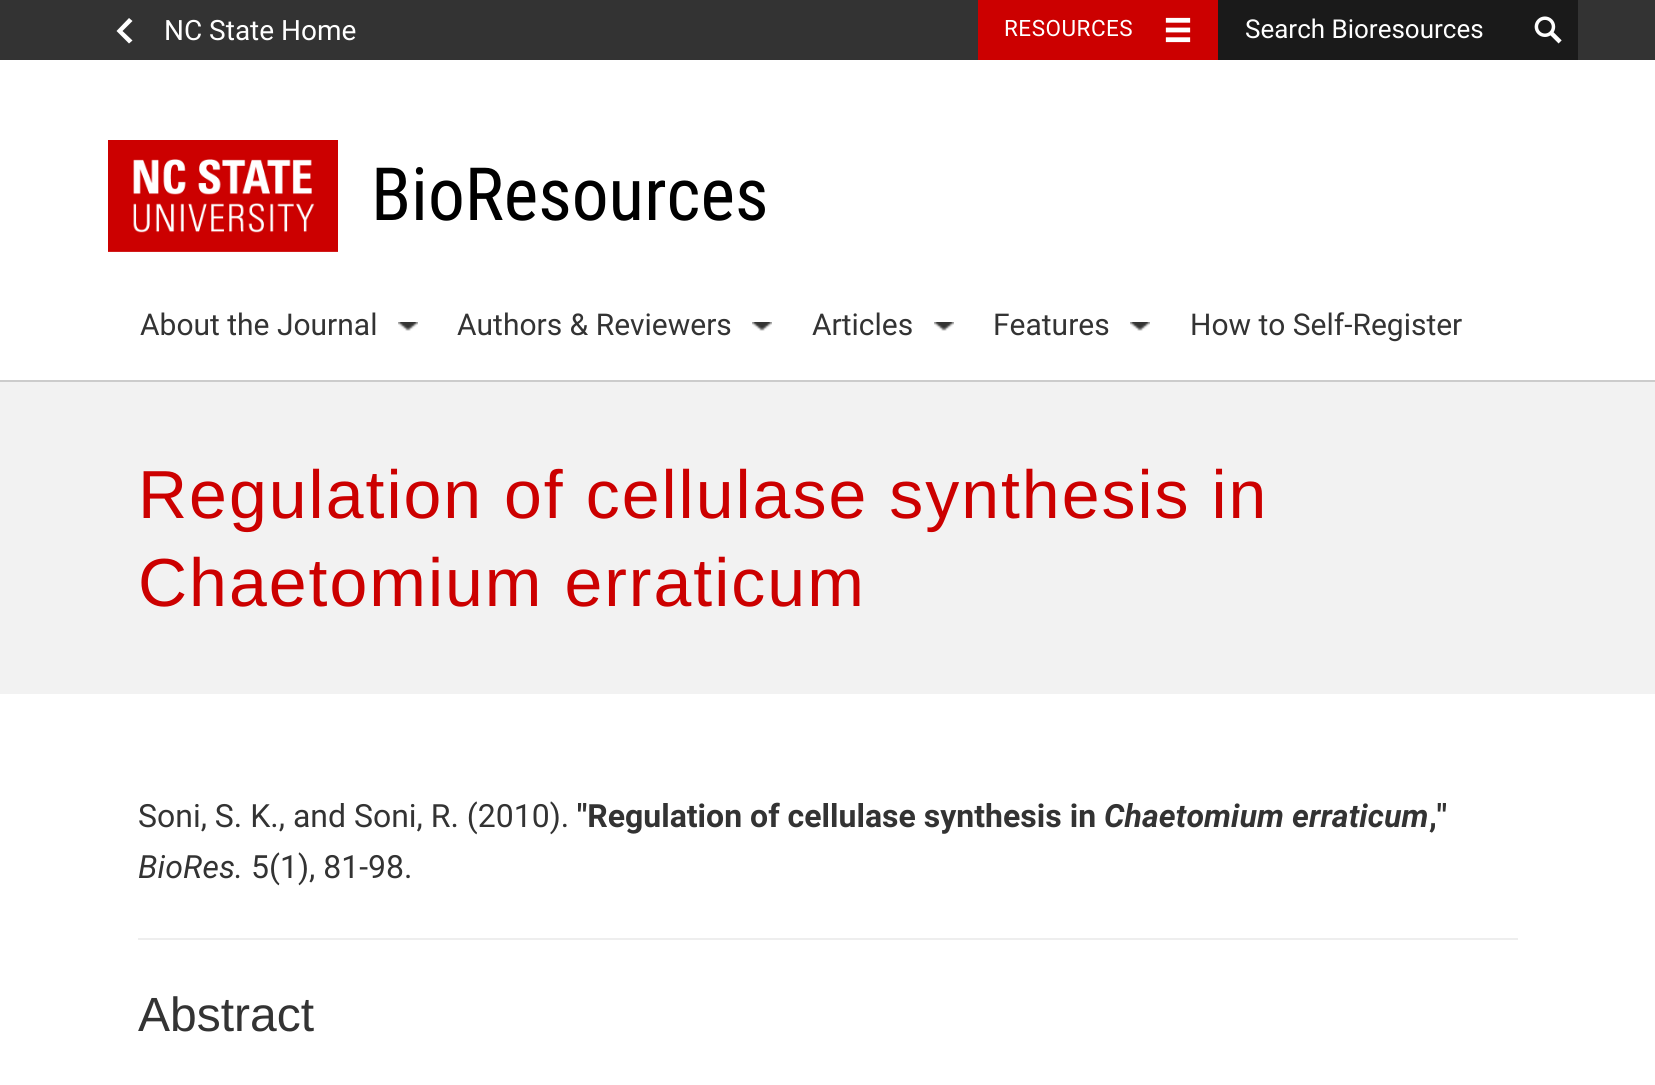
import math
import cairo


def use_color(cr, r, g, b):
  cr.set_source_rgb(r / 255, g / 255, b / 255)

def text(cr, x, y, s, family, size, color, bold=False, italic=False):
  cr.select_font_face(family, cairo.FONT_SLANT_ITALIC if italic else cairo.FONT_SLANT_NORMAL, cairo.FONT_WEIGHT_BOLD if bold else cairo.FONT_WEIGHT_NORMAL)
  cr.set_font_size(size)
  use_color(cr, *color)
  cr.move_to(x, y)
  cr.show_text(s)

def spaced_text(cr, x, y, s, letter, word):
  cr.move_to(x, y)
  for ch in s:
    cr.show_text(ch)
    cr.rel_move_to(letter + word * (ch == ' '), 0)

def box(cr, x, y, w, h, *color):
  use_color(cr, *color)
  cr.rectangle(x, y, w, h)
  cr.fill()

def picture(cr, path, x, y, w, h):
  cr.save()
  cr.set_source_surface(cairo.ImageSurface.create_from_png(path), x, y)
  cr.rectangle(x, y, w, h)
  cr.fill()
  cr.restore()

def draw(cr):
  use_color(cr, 255, 255, 255)
  cr.paint()
  box(cr, 0, 0, 1655, 60, 51, 51, 51)
  use_color(cr, 255, 255, 255)
  cr.new_path()
  cr.move_to(119.5, 34)
  cr.line_to(129, 43.5)
  cr.line_to(132.5, 40.5)
  cr.line_to(122.5, 31)
  cr.line_to(132.5, 21)
  cr.line_to(129, 18)
  cr.line_to(116.5, 31)
  cr.close_path()
  cr.fill()
  box(cr, 978, 0, 240, 60, 204, 0, 0)
  picture(cr, "img_01.png", 1165, 17, 26, 26)
  box(cr, 1218, 0, 360, 60, 26, 26, 26)
  picture(cr, "img_02.png", 1534, 16, 28, 28)
  box(cr, 0, 380, 1655, 2, 204, 204, 204)
  picture(cr, "img_03.png", 108, 140, 230, 112)
  picture(cr, "img_04.png", 398, 322, 20, 9)
  picture(cr, "img_04.png", 752, 322, 20, 9)
  picture(cr, "img_04.png", 934, 322, 20, 9)
  picture(cr, "img_04.png", 1130, 322, 20, 9)
  box(cr, 0, 382, 1655, 312, 242, 242, 242)
  box(cr, 138, 938, 1380, 2, 238, 238, 238)
  text(cr, 164, 40, "NC State Home", "Roboto", 28, (255, 255, 255))
  cr.set_font_size(22.5)
  spaced_text(cr, 1004, 36, "RESOURCES", 0.5, 0)
  text(cr, 1245, 38, "Search Bioresources", "Roboto", 26, (255, 255, 255))
  text(cr, 371, 220, "BioResources", "Roboto Condensed", 73.5, (0, 0, 0))
  text(cr, 140, 335, "About the Journal", "Roboto", 30, (51, 51, 51))
  text(cr, 457, 335, "Authors & Reviewers", "Roboto", 30, (51, 51, 51))
  text(cr, 812, 335, "Articles", "Roboto", 30, (51, 51, 51))
  text(cr, 993, 335, "Features", "Roboto", 30, (51, 51, 51))
  text(cr, 1190, 335, "How to Self-Register", "Roboto", 30, (51, 51, 51))
  cr.select_font_face("Liberation Sans")
  cr.set_font_size(68)
  use_color(cr, 204, 0, 0)
  spaced_text(cr, 138, 518, "Regulation of cellulase synthesis in", 2, 0)
  spaced_text(cr, 138, 606, "Chaetomium erraticum", 2, 0)
  text(cr, 138, 827, "Soni, S. K., and Soni, R. (2010).", "Roboto", 32, (51, 51, 51))
  text(cr, 577, 827, "\"Regulation of cellulase synthesis in", "Roboto", 32, (51, 51, 51), bold=True)
  text(cr, 1104, 827, "Chaetomium erraticum", "Roboto", 32, (51, 51, 51), bold=True, italic=True)
  text(cr, 1429, 827, ",\"", "Roboto", 32, (51, 51, 51), bold=True)
  text(cr, 138, 878, "BioRes.", "Roboto", 32, (51, 51, 51), italic=True)
  text(cr, 251, 878, "5(1), 81-98.", "Roboto", 32, (51, 51, 51))
  text(cr, 138, 1031, "Abstract", "Liberation Sans", 48, (51, 51, 51))


surface = cairo.ImageSurface(cairo.FORMAT_RGB24, 1655, 1085)
cr = cairo.Context(surface)
options = cairo.FontOptions()
options.set_hint_metrics(cairo.HINT_METRICS_OFF)
options.set_hint_style(cairo.HINT_STYLE_NONE)
cr.set_font_options(options)
cr.set_miter_limit(4)
draw(cr)
surface.write_to_png("out.png")
